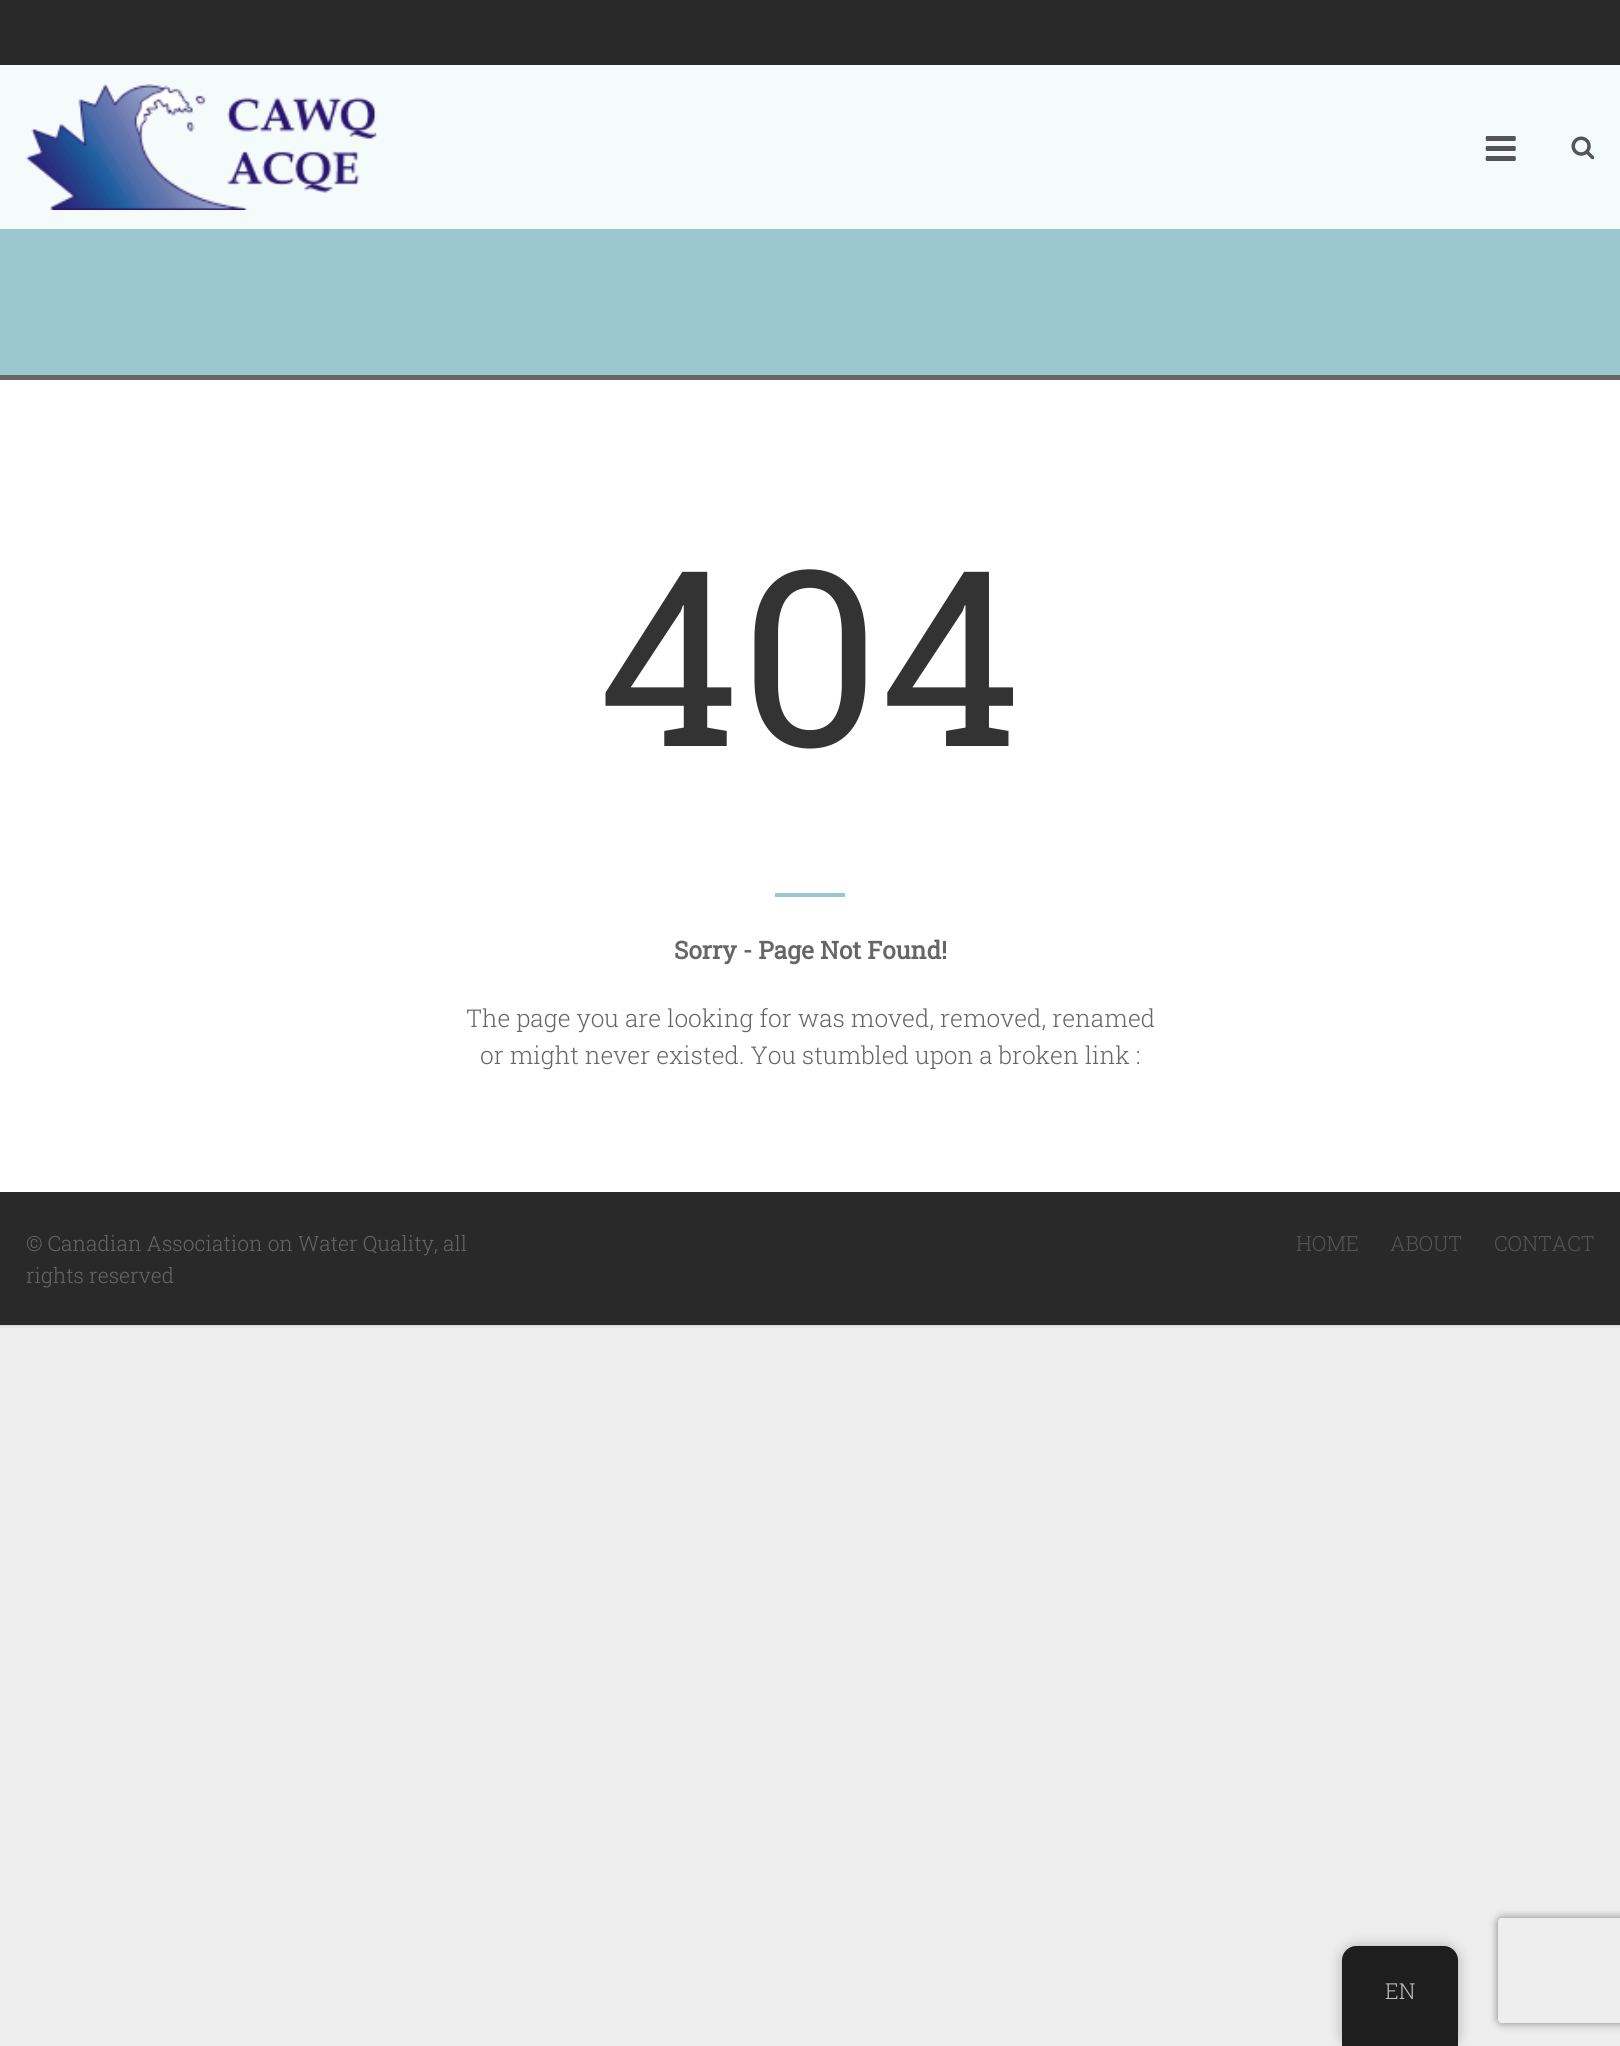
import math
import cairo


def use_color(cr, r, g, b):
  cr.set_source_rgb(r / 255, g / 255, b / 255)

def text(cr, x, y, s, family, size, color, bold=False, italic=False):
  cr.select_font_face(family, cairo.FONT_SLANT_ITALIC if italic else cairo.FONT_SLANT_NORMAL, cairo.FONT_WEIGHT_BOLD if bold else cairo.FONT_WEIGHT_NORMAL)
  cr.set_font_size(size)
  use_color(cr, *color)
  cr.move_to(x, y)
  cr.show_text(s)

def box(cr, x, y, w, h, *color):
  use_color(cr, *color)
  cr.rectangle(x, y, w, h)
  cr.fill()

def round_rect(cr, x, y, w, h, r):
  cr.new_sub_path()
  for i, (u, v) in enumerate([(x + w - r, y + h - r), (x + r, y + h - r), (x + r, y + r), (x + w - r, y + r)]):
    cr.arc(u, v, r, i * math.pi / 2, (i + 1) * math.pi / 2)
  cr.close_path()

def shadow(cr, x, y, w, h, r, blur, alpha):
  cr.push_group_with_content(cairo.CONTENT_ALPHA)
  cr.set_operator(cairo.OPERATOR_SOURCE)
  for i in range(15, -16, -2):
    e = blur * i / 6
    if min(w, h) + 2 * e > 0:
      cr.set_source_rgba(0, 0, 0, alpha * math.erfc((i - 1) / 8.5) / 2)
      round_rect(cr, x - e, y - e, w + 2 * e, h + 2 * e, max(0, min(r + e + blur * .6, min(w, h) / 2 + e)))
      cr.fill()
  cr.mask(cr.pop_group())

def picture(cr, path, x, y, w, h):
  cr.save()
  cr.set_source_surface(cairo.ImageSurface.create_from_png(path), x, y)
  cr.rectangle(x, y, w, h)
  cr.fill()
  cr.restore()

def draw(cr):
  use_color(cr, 238, 238, 238)
  cr.paint()
  use_color(cr, 0, 0, 0)
  shadow(cr, 0, 0, 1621, 1325, 0, 2, 0.2)
  box(cr, 0, 380, 1620, 812, 255, 255, 255)
  box(cr, 0, 0, 1620, 65, 41, 41, 41)
  box(cr, 0, 65, 1620, 310, 155, 200, 206)
  cr.set_source_rgba(1, 1, 1, 0.9)
  cr.rectangle(0, 65, 1620, 164)
  cr.fill()
  picture(cr, "img_01.png", 26, 84, 351, 126)
  picture(cr, "img_02.png", 1485, 136, 31, 25)
  picture(cr, "img_03.png", 1571, 136, 24, 24)
  box(cr, 0, 375, 1620, 5, 102, 102, 102)
  box(cr, 775, 893, 70, 4, 155, 200, 206)
  box(cr, 0, 1192, 1620, 133, 41, 41, 41)
  use_color(cr, 0, 0, 0)
  shadow(cr, 1342, 1946, 116, 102, 14, 7, 0.25)
  use_color(cr, 30, 30, 30)
  cr.new_path()
  cr.move_to(1356, 1946)
  cr.line_to(1444, 1946)
  cr.curve_to(1451.5, 1946, 1458, 1952.5, 1458, 1960)
  cr.line_to(1458, 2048)
  cr.line_to(1342, 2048)
  cr.line_to(1342, 1960)
  cr.curve_to(1342, 1952.5, 1348.5, 1946, 1356, 1946)
  cr.close_path()
  cr.fill()
  cr.save()
  cr.set_fill_rule(cairo.FILL_RULE_EVEN_ODD)
  cr.new_path()
  cr.move_to(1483, 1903)
  cr.line_to(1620, 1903)
  cr.line_to(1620, 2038)
  cr.line_to(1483, 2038)
  cr.close_path()
  cr.move_to(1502, 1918)
  cr.line_to(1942, 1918)
  cr.curve_to(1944, 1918, 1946, 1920, 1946, 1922)
  cr.line_to(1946, 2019)
  cr.curve_to(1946, 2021, 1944, 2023, 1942, 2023)
  cr.line_to(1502, 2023)
  cr.curve_to(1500, 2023, 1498, 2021, 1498, 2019)
  cr.line_to(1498, 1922)
  cr.curve_to(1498, 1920, 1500, 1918, 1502, 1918)
  cr.close_path()
  cr.clip()
  use_color(cr, 128, 128, 128)
  shadow(cr, 1498, 1918, 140, 105, 4, 4.5, 1)
  cr.restore()
  text(cr, 598, 746, "404", "Roboto Slab", 245, (51, 51, 51))
  text(cr, 674, 959, "Sorry - Page Not Found!", "Roboto Slab", 24.5, (102, 102, 102), bold=True)
  text(cr, 466, 1027, "The page you are looking for was moved, removed, renamed", "Roboto Slab Light", 24.5, (102, 102, 102))
  text(cr, 480, 1064, "or might never existed. You stumbled upon a broken link :", "Roboto Slab Light", 24.5, (102, 102, 102))
  text(cr, 26, 1251, "© Canadian Association on Water Quality, all", "Roboto Slab Light", 21, (102, 102, 102))
  text(cr, 26, 1283, "rights reserved", "Roboto Slab Light", 21, (102, 102, 102))
  text(cr, 1296, 1251, "HOME", "Roboto Slab Light", 21, (85, 85, 85))
  text(cr, 1390, 1251, "ABOUT", "Roboto Slab Light", 21, (85, 85, 85))
  text(cr, 1494, 1251, "CONTACT", "Roboto Slab Light", 21, (85, 85, 85))
  text(cr, 1385, 1999, "EN", "Roboto Slab Light", 22, (189, 189, 189))


surface = cairo.ImageSurface(cairo.FORMAT_RGB24, 1620, 2046)
cr = cairo.Context(surface)
options = cairo.FontOptions()
options.set_hint_metrics(cairo.HINT_METRICS_OFF)
options.set_hint_style(cairo.HINT_STYLE_NONE)
cr.set_font_options(options)
cr.set_miter_limit(4)
draw(cr)
surface.write_to_png("out.png")
